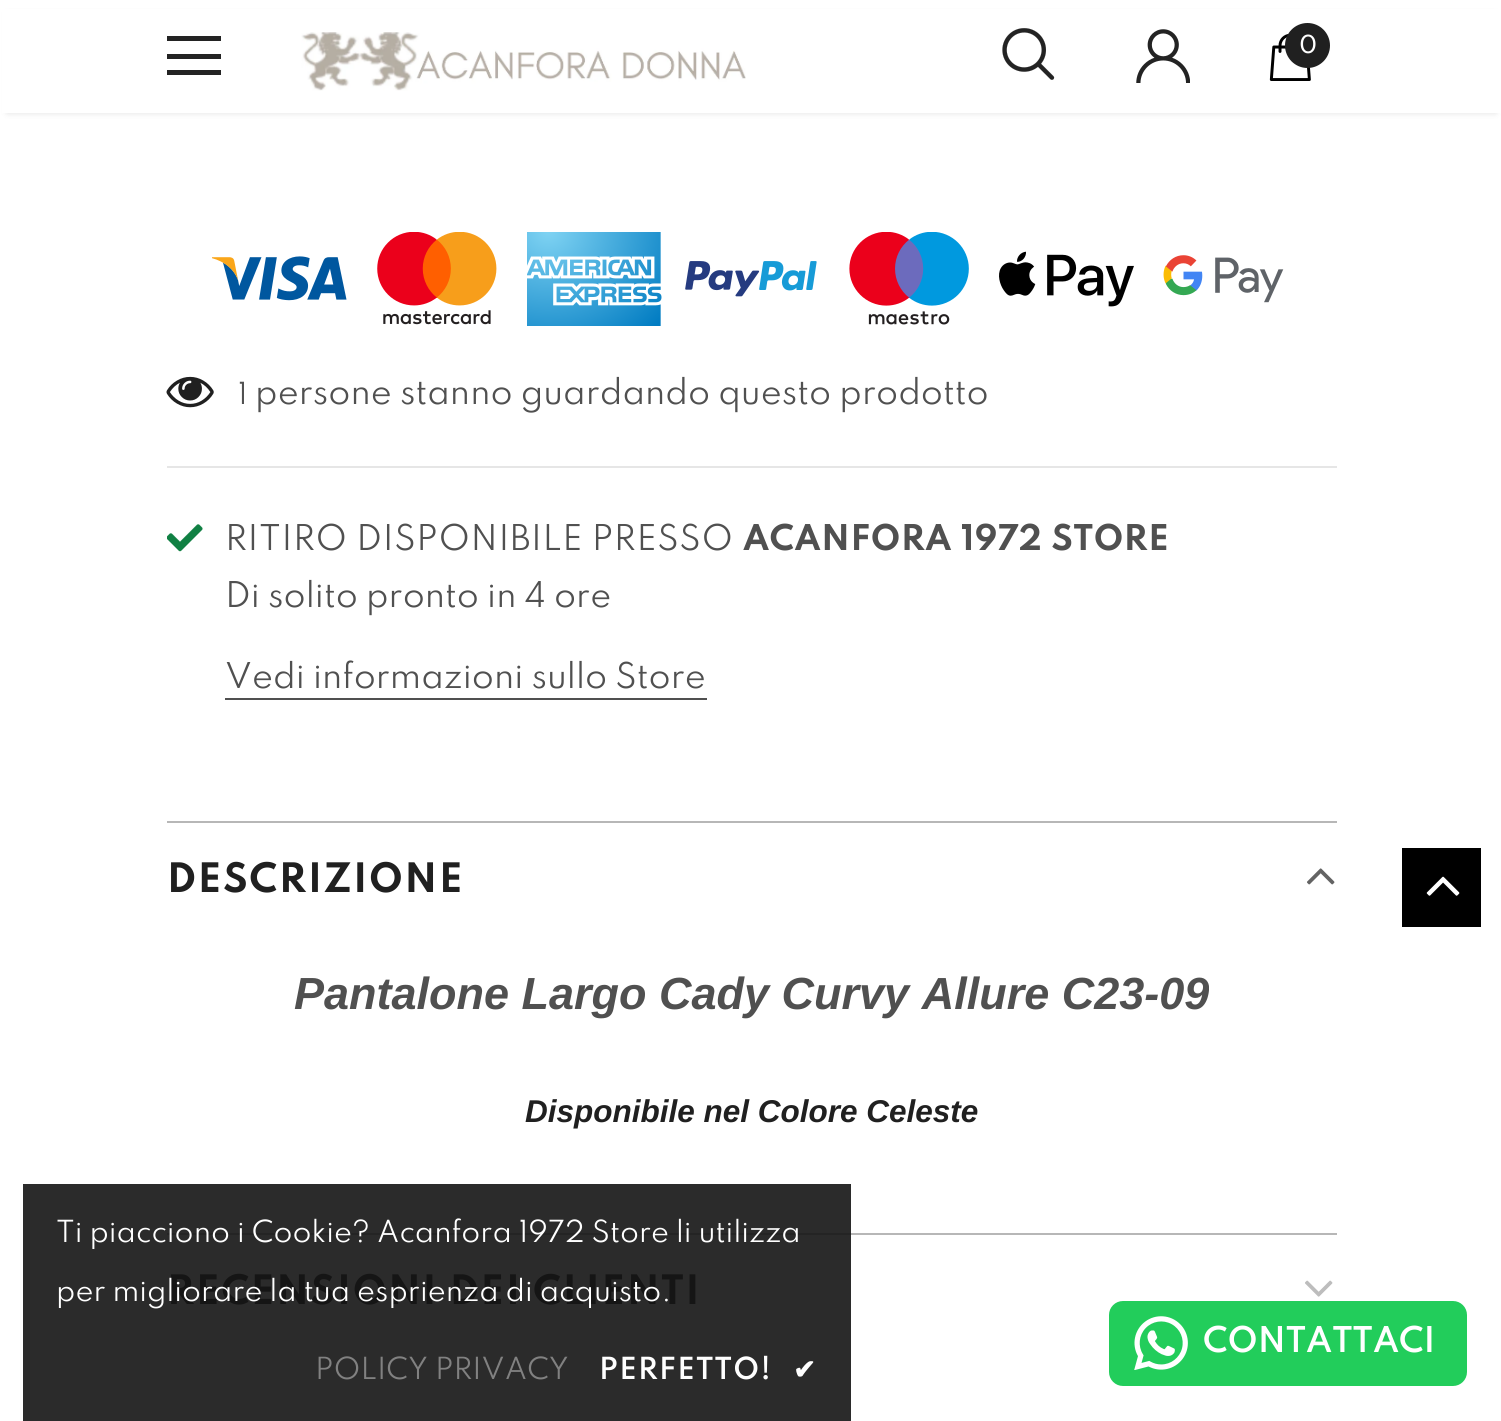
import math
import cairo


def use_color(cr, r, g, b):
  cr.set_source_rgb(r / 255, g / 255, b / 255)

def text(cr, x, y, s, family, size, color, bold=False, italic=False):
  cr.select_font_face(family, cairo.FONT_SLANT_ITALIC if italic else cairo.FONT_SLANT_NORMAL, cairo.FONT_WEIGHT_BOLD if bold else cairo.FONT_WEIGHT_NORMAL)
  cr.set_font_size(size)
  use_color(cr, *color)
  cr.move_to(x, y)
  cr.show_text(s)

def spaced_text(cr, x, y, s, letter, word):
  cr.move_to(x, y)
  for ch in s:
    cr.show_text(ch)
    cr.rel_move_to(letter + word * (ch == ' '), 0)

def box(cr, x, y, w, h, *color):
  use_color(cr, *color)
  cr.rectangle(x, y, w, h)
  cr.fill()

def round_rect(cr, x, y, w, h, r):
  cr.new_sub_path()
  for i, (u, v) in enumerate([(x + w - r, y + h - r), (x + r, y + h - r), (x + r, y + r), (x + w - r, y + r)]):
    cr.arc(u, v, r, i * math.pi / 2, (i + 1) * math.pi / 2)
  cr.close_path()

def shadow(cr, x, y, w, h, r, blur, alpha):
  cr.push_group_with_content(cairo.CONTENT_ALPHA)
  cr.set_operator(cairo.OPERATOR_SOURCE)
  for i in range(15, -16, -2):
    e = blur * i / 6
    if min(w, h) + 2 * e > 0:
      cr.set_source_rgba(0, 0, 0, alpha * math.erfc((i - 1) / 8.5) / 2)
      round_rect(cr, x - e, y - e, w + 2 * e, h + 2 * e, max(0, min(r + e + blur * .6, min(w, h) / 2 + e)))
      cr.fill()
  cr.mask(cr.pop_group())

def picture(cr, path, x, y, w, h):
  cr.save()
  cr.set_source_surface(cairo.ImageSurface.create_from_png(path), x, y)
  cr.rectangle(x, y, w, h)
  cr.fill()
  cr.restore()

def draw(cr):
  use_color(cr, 255, 255, 255)
  cr.paint()
  box(cr, 23, 1184, 828, 237, 43, 43, 43)
  use_color(cr, 0, 0, 0)
  shadow(cr, 7, 14, 1489, 99, 0, 3.5, 0.12)
  box(cr, 2, 9, 1499, 104, 255, 255, 255)
  box(cr, 167, 36, 54, 5, 35, 35, 35)
  box(cr, 167, 54, 54, 5, 35, 35, 35)
  box(cr, 167, 70, 54, 5, 35, 35, 35)
  picture(cr, "img_01.png", 301, 32, 445, 59)
  picture(cr, "img_02.png", 1002, 28, 53, 52)
  picture(cr, "img_03.png", 1136, 29, 54, 54)
  picture(cr, "img_04.png", 1269, 34, 42, 47)
  use_color(cr, 32, 32, 32)
  cr.arc(1307.5, 45.5, 22.5, 0, 2 * math.pi)
  cr.fill()
  picture(cr, "img_05.png", 212, 256, 135, 45)
  picture(cr, "img_06.png", 377, 232, 120, 93)
  picture(cr, "img_07.png", 527, 232, 135, 94)
  picture(cr, "img_08.png", 685, 261, 132, 36)
  picture(cr, "img_09.png", 849, 232, 120, 93)
  picture(cr, "img_10.png", 999, 251, 135, 56)
  picture(cr, "img_11.png", 1163, 255, 121, 48)
  picture(cr, "img_12.png", 166, 376, 48, 32)
  box(cr, 167, 466, 1170, 2, 230, 230, 230)
  picture(cr, "img_13.png", 167, 524, 36, 28)
  box(cr, 225, 698, 482, 2, 80, 80, 80)
  box(cr, 167, 821, 1170, 2, 183, 183, 183)
  picture(cr, "img_14.png", 1307, 868, 28, 17)
  box(cr, 851, 1233, 486, 2, 183, 183, 183)
  box(cr, 167, 1233, 684, 2, 36, 36, 36)
  picture(cr, "img_15.png", 1305, 1280, 28, 17)
  box(cr, 1402, 848, 79, 79, 0, 0, 0)
  picture(cr, "img_16.png", 1426, 876, 34, 20)
  use_color(cr, 34, 205, 91)
  round_rect(cr, 1109, 1301, 358, 85, 14)
  cr.fill()
  picture(cr, "img_17.png", 1134, 1316, 54, 54)
  text(cr, 1299, 53, "0", "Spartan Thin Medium", 22, (255, 255, 255))
  text(cr, 238, 404, "1", "Spartan Thin", 27, (80, 80, 80))
  text(cr, 255, 404, "persone stanno guardando questo prodotto", "Spartan Thin", 31.5, (80, 80, 80))
  spaced_text(cr, 225, 550, "RITIRO DISPONIBILE PRESSO", 0.6, 0)
  cr.select_font_face("Spartan Thin", cairo.FONT_SLANT_NORMAL, cairo.FONT_WEIGHT_BOLD)
  spaced_text(cr, 743, 550, "ACANFORA 1972 STORE", 0.6, 0)
  text(cr, 225, 607, "Di solito pronto in 4 ore", "Spartan Thin", 31.5, (80, 80, 80))
  text(cr, 225, 688, "Vedi informazioni sullo Store", "Spartan Thin", 31.5, (80, 80, 80))
  cr.select_font_face("Spartan Thin", cairo.FONT_SLANT_NORMAL, cairo.FONT_WEIGHT_BOLD)
  cr.set_font_size(36)
  use_color(cr, 32, 32, 32)
  spaced_text(cr, 167, 892, "DESCRIZIONE", 1.8, 0)
  text(cr, 294, 1009, "Pantalone Largo Cady Curvy Allure C23-09", "Liberation Sans", 45, (80, 80, 80), bold=True, italic=True)
  text(cr, 525, 1122, "Disponibile nel Colore Celeste", "Liberation Sans", 31.5, (32, 32, 32), bold=True, italic=True)
  cr.select_font_face("Spartan Thin", cairo.FONT_SLANT_NORMAL, cairo.FONT_WEIGHT_BOLD)
  cr.set_font_size(36)
  use_color(cr, 21, 21, 21)
  spaced_text(cr, 167, 1304, "RECENSIONI DEI CLIENTI", 1.8, 0)
  text(cr, 56, 1242, "Ti piacciono i Cookie? Acanfora 1972 Store li utilizza", "Spartan Thin", 27, (255, 255, 255))
  text(cr, 56, 1301, "per migliorare la tua esprienza di acquisto.", "Spartan Thin", 27, (255, 255, 255))
  text(cr, 315, 1379, "POLICY PRIVACY", "Spartan Thin", 27, (129, 129, 129))
  cr.select_font_face("Spartan Thin SemiBold")
  use_color(cr, 255, 255, 255)
  spaced_text(cr, 599, 1379, "PERFETTO!", 1.25, 0)
  cr.select_font_face("DejaVu Sans", cairo.FONT_SLANT_NORMAL, cairo.FONT_WEIGHT_BOLD)
  spaced_text(cr, 793, 1379, "✔", 1.25, 0)
  text(cr, 1203, 1352, "CONTATTACI", "Spartan Thin SemiBold", 31.5, (255, 255, 255))


surface = cairo.ImageSurface(cairo.FORMAT_RGB24, 1501, 1421)
cr = cairo.Context(surface)
options = cairo.FontOptions()
options.set_hint_metrics(cairo.HINT_METRICS_OFF)
options.set_hint_style(cairo.HINT_STYLE_NONE)
cr.set_font_options(options)
cr.set_miter_limit(4)
draw(cr)
surface.write_to_png("out.png")
